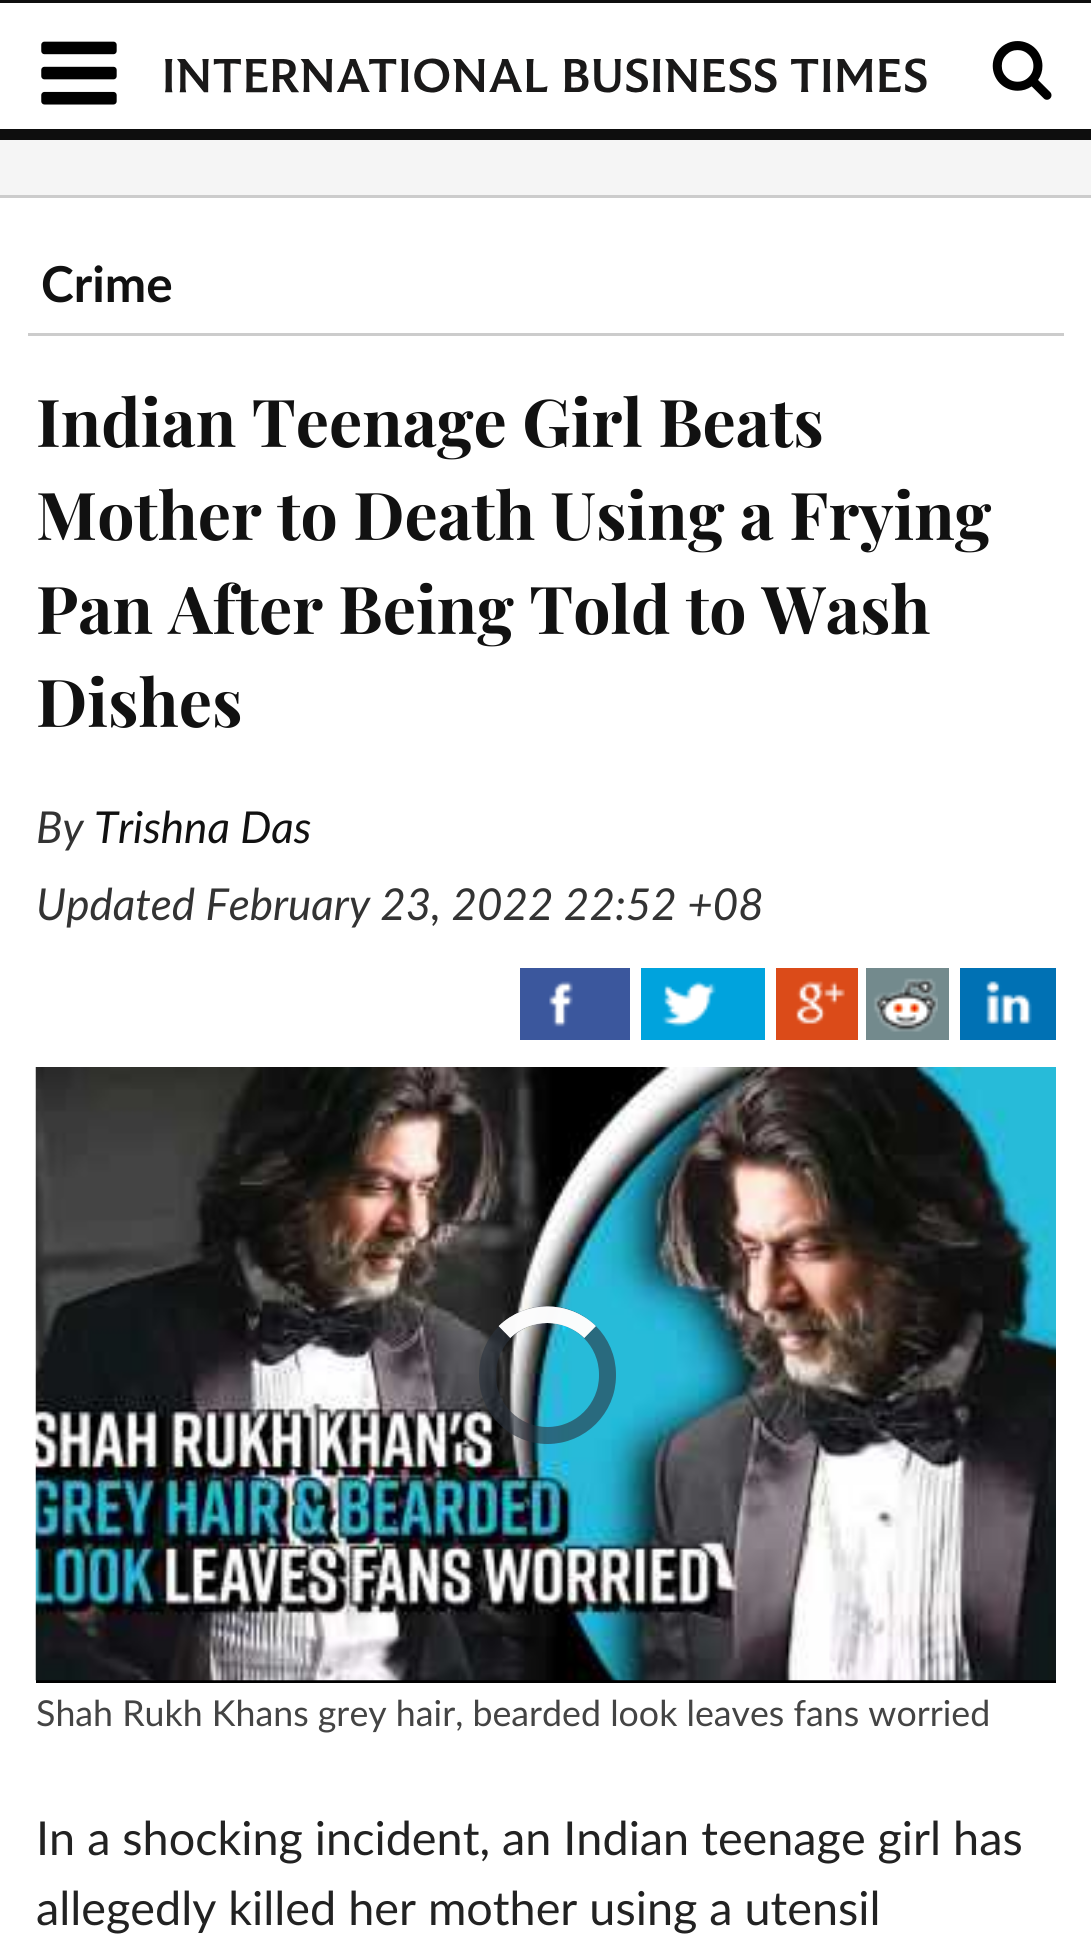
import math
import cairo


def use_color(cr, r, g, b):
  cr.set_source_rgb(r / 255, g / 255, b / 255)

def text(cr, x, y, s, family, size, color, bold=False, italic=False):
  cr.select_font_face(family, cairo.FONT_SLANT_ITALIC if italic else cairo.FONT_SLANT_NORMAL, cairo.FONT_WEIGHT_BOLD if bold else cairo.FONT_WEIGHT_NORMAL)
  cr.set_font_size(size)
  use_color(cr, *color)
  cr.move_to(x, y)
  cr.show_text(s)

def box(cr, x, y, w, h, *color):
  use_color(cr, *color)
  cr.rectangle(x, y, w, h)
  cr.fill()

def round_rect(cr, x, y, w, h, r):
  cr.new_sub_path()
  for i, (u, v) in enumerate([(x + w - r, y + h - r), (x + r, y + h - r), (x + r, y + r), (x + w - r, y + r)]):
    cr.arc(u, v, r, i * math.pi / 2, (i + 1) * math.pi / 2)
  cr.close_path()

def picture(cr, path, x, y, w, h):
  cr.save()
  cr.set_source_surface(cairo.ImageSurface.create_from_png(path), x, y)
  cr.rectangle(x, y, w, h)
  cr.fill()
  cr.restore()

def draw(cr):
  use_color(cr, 255, 255, 255)
  cr.paint()
  box(cr, 0, 0, 1091, 3, 14, 14, 14)
  box(cr, 0, 129, 1091, 11, 14, 14, 14)
  picture(cr, "img_01.png", 41, 41, 76, 64)
  picture(cr, "img_02.png", 165, 58, 762, 35)
  picture(cr, "img_03.png", 992, 41, 60, 59)
  box(cr, 0, 140, 1091, 55, 245, 245, 245)
  box(cr, 0, 195, 1091, 3, 204, 204, 204)
  box(cr, 28, 333, 1036, 3, 204, 204, 204)
  box(cr, 520, 968, 110, 72, 59, 87, 157)
  picture(cr, "img_04.png", 549, 981, 24, 46)
  box(cr, 641, 968, 124, 72, 0, 163, 221)
  picture(cr, "img_05.png", 662, 981, 54, 46)
  box(cr, 776, 968, 82, 72, 219, 75, 25)
  picture(cr, "img_06.png", 796, 981, 49, 43)
  box(cr, 866, 968, 83, 72, 115, 138, 141)
  picture(cr, "img_07.png", 873, 978, 65, 54)
  box(cr, 960, 968, 96, 72, 0, 113, 180)
  picture(cr, "img_08.png", 986, 981, 46, 43)
  box(cr, 36, 1680, 1020, 3, 0, 0, 0)
  picture(cr, "img_09.png", 35, 1067, 1021, 614)
  round_rect(cr, 487.5, 1314.5, 120, 121, 60)
  cr.set_source_rgba(0.169, 0.2, 0.247, 0.59)
  cr.set_line_width(17)
  cr.stroke()
  cr.new_path()
  cr.move_to(504.5, 1332)
  cr.curve_to(528, 1309, 566.5, 1309, 590, 1332)
  cr.set_source_rgba(1, 1, 1, 0.85)
  cr.set_line_width(16.5)
  cr.stroke()
  cr.new_path()
  cr.move_to(504.5, 1332)
  cr.curve_to(528, 1309, 566.5, 1309, 590, 1332)
  cr.stroke()
  text(cr, 41, 302, "Crime", "Lato", 49.5, (17, 17, 17), bold=True)
  text(cr, 36, 447, "Indian Teenage Girl Beats", "Playfair Display", 66, (17, 17, 17), bold=True)
  text(cr, 36, 540, "Mother to Death Using a Frying", "Playfair Display", 66, (17, 17, 17), bold=True)
  text(cr, 36, 634, "Pan After Being Told to Wash", "Playfair Display", 66, (17, 17, 17), bold=True)
  text(cr, 36, 727, "Dishes", "Playfair Display", 66, (17, 17, 17), bold=True)
  text(cr, 36, 843, "By", "Lato", 44, (51, 51, 51), italic=True)
  text(cr, 94, 843, "Trishna Das", "Lato", 44, (17, 17, 17), italic=True)
  text(cr, 36, 920, "Updated February 23, 2022 22:52 +08", "Lato", 44, (51, 51, 51), italic=True)
  text(cr, 36, 1726, "Shah Rukh Khans grey hair, bearded look leaves fans worried", "Lato", 35.75, (68, 68, 68))
  text(cr, 36, 1855, "In a shocking incident, an Indian teenage girl has", "Lato", 46.75, (34, 34, 34))
  text(cr, 36, 1925, "allegedly killed her mother using a utensil", "Lato", 46.75, (34, 34, 34))


surface = cairo.ImageSurface(cairo.FORMAT_RGB24, 1091, 1949)
cr = cairo.Context(surface)
options = cairo.FontOptions()
options.set_hint_metrics(cairo.HINT_METRICS_OFF)
options.set_hint_style(cairo.HINT_STYLE_NONE)
cr.set_font_options(options)
cr.set_miter_limit(4)
draw(cr)
surface.write_to_png("out.png")
